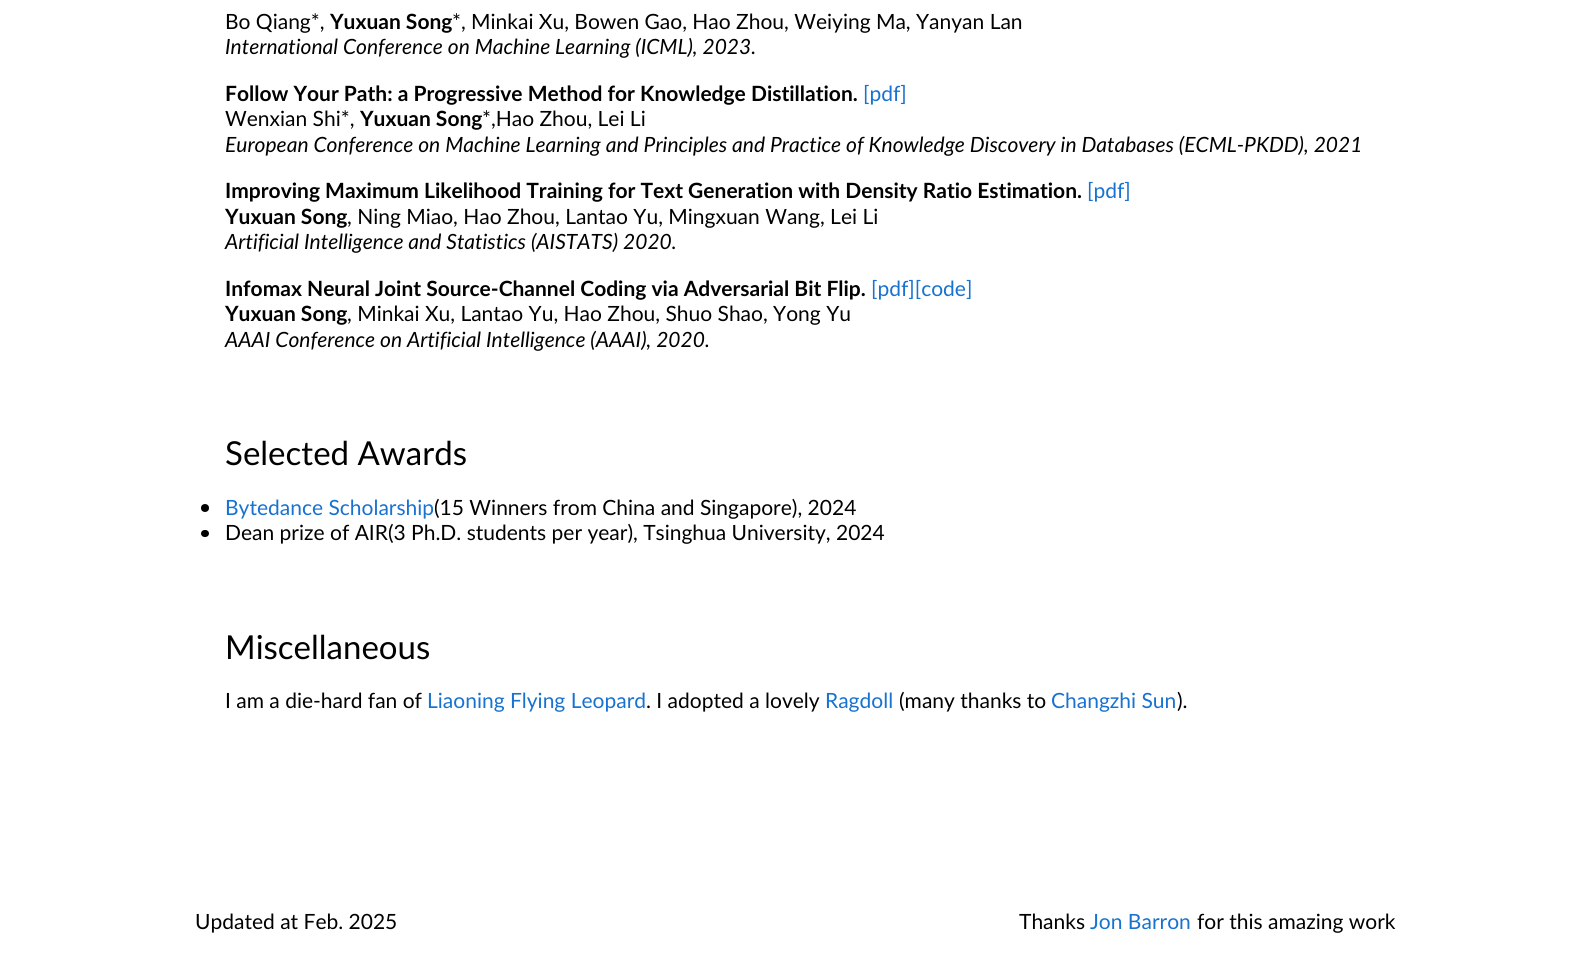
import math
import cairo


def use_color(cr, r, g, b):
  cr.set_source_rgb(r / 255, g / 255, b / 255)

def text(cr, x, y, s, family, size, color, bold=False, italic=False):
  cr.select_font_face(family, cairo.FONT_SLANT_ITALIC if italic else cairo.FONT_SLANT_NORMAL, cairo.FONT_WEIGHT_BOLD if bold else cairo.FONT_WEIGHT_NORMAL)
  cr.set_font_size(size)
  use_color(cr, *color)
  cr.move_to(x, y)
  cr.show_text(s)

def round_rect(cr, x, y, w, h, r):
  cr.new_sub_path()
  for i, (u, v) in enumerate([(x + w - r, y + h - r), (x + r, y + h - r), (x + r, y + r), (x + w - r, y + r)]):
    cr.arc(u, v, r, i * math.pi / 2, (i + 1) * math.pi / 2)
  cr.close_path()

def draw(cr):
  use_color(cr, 255, 255, 255)
  cr.paint()
  use_color(cr, 0, 0, 0)
  cr.arc(205, 508, 4, 0, 2 * math.pi)
  cr.fill()
  round_rect(cr, 201, 530, 8, 7, 3.5)
  cr.fill()
  text(cr, 225, 29, "Bo Qiang*,", "Lato", 21, (0, 0, 0))
  text(cr, 330, 29, "Yuxuan Song", "Lato", 21, (0, 0, 0), bold=True)
  text(cr, 452, 29, "*, Minkai Xu, Bowen Gao, Hao Zhou, Weiying Ma, Yanyan Lan", "Lato", 21, (0, 0, 0))
  text(cr, 225, 54, "International Conference on Machine Learning (ICML), 2023.", "Lato", 21, (0, 0, 0), italic=True)
  text(cr, 225, 101, "Follow Your Path: a Progressive Method for Knowledge Distillation.", "Lato", 21, (0, 0, 0), bold=True)
  text(cr, 863, 101, "[pdf]", "Lato", 21, (23, 114, 208))
  text(cr, 225, 126, "Wenxian Shi*,", "Lato", 21, (0, 0, 0))
  text(cr, 360, 126, "Yuxuan Song", "Lato", 21, (0, 0, 0), bold=True)
  text(cr, 482, 126, "*,Hao Zhou, Lei Li", "Lato", 21, (0, 0, 0))
  text(cr, 225, 152, "European Conference on Machine Learning and Principles and Practice of Knowledge Discovery in Databases (ECML-PKDD), 2021", "Lato", 21, (0, 0, 0), italic=True)
  text(cr, 225, 198, "Improving Maximum Likelihood Training for Text Generation with Density Ratio Estimation.", "Lato", 21, (0, 0, 0), bold=True)
  text(cr, 1087, 198, "[pdf]", "Lato", 21, (23, 114, 208))
  text(cr, 225, 224, "Yuxuan Song", "Lato", 21, (0, 0, 0), bold=True)
  text(cr, 347, 224, ", Ning Miao, Hao Zhou, Lantao Yu, Mingxuan Wang, Lei Li", "Lato", 21, (0, 0, 0))
  text(cr, 225, 249, "Artificial Intelligence and Statistics (AISTATS) 2020.", "Lato", 21, (0, 0, 0), italic=True)
  text(cr, 225, 296, "Infomax Neural Joint Source-Channel Coding via Adversarial Bit Flip.", "Lato", 21, (0, 0, 0), bold=True)
  text(cr, 871, 296, "[pdf][code]", "Lato", 21, (23, 114, 208))
  text(cr, 225, 321, "Yuxuan Song", "Lato", 21, (0, 0, 0), bold=True)
  text(cr, 347, 321, ", Minkai Xu, Lantao Yu, Hao Zhou, Shuo Shao, Yong Yu", "Lato", 21, (0, 0, 0))
  text(cr, 225, 347, "AAAI Conference on Artificial Intelligence (AAAI), 2020.", "Lato", 21, (0, 0, 0), italic=True)
  text(cr, 225, 465, "Selected Awards", "Lato", 33, (0, 0, 0))
  text(cr, 225, 515, "Bytedance Scholarship", "Lato", 21, (23, 114, 208))
  text(cr, 434, 515, "(15 Winners from China and Singapore), 2024", "Lato", 21, (0, 0, 0))
  text(cr, 225, 540, "Dean prize of AIR(3 Ph.D. students per year), Tsinghua University, 2024", "Lato", 21, (0, 0, 0))
  text(cr, 225, 659, "Miscellaneous", "Lato", 33, (0, 0, 0))
  text(cr, 225, 708, "I am a die-hard fan of", "Lato", 21, (0, 0, 0))
  text(cr, 427, 708, "Liaoning Flying Leopard", "Lato", 21, (23, 114, 208))
  text(cr, 646, 708, ". I adopted a lovely", "Lato", 21, (0, 0, 0))
  text(cr, 825, 708, "Ragdoll", "Lato", 21, (23, 114, 208))
  text(cr, 899, 708, "(many thanks to", "Lato", 21, (0, 0, 0))
  text(cr, 1051, 708, "Changzhi Sun", "Lato", 21, (23, 114, 208))
  text(cr, 1177, 708, ").", "Lato", 21, (0, 0, 0))
  text(cr, 195, 929, "Updated at Feb. 2025", "Lato", 21, (0, 0, 0))
  text(cr, 1019, 929, "Thanks", "Lato", 21, (0, 0, 0))
  text(cr, 1090, 929, "Jon Barron", "Lato", 21, (23, 114, 208))
  text(cr, 1197, 929, "for this amazing work", "Lato", 21, (0, 0, 0))


surface = cairo.ImageSurface(cairo.FORMAT_RGB24, 1589, 964)
cr = cairo.Context(surface)
options = cairo.FontOptions()
options.set_hint_metrics(cairo.HINT_METRICS_OFF)
options.set_hint_style(cairo.HINT_STYLE_NONE)
cr.set_font_options(options)
cr.set_miter_limit(4)
draw(cr)
surface.write_to_png("out.png")
